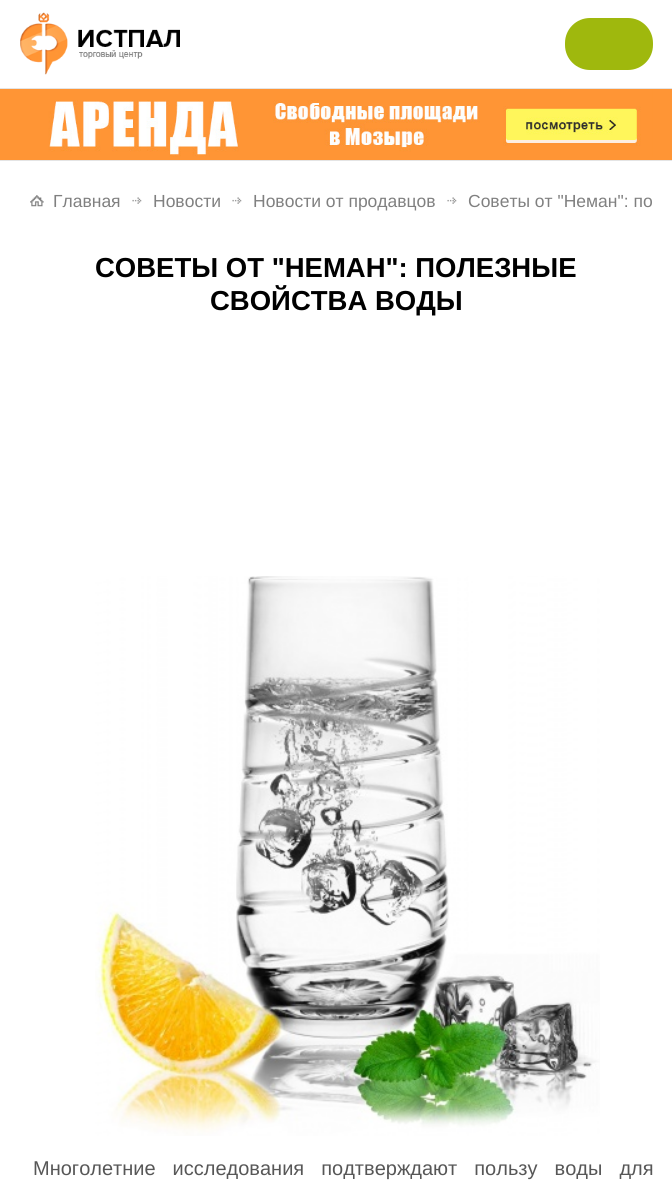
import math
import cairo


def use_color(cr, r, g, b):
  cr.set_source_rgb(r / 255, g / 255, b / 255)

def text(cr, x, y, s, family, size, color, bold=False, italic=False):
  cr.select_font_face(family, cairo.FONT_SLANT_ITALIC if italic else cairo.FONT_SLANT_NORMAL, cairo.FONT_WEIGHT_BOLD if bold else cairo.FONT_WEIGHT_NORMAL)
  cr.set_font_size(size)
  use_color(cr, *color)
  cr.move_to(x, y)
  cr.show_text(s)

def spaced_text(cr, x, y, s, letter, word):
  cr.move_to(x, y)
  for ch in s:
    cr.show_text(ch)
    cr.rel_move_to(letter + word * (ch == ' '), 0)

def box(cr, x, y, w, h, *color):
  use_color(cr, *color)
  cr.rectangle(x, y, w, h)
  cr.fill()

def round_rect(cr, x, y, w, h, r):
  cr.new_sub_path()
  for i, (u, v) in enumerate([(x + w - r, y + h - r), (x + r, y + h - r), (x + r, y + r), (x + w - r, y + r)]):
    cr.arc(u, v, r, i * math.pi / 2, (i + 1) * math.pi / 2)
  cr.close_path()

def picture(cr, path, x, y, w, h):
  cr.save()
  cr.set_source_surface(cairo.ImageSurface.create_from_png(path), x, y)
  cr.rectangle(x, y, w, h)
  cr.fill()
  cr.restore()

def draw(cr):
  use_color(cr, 255, 255, 255)
  cr.paint()
  box(cr, 0, 88, 672, 1, 228, 228, 228)
  picture(cr, "img_01.png", 20, 12, 160, 63)
  use_color(cr, 159, 184, 13)
  round_rect(cr, 565, 18, 88, 52, 25)
  cr.fill()
  box(cr, 0, 89, 672, 71, 255, 149, 53)
  picture(cr, "img_02.png", 20, 89, 633, 68)
  box(cr, 0, 160, 672, 1, 228, 228, 228)
  picture(cr, "img_03.png", 30, 195, 14, 12)
  picture(cr, "img_04.png", 132, 197, 10, 7)
  picture(cr, "img_04.png", 232, 197, 10, 7)
  picture(cr, "img_04.png", 447, 197, 10, 7)
  picture(cr, "img_05.png", 95, 576, 505, 560)
  text(cr, 53, 207, "Главная", "Liberation Sans", 17.5, (128, 128, 128))
  text(cr, 153, 207, "Новости", "Liberation Sans", 17.5, (128, 128, 128))
  text(cr, 253, 207, "Новости от продавцов", "Liberation Sans", 17.5, (128, 128, 128))
  text(cr, 468, 207, "Советы от \"Неман\": по", "Liberation Sans", 17.5, (128, 128, 128))
  text(cr, 95, 277, "СОВЕТЫ ОТ \"НЕМАН\": ПОЛЕЗНЫЕ", "Liberation Sans", 27.5, (0, 0, 0), bold=True)
  text(cr, 210, 310, "СВОЙСТВА ВОДЫ", "Liberation Sans", 27.5, (0, 0, 0), bold=True)
  cr.select_font_face("Liberation Sans")
  cr.set_font_size(20)
  use_color(cr, 87, 87, 87)
  spaced_text(cr, 33, 1175, "Многолетние исследования подтверждают пользу воды для", 0, 11.5)


surface = cairo.ImageSurface(cairo.FORMAT_RGB24, 672, 1198)
cr = cairo.Context(surface)
options = cairo.FontOptions()
options.set_hint_metrics(cairo.HINT_METRICS_OFF)
options.set_hint_style(cairo.HINT_STYLE_NONE)
cr.set_font_options(options)
cr.set_miter_limit(4)
draw(cr)
surface.write_to_png("out.png")
